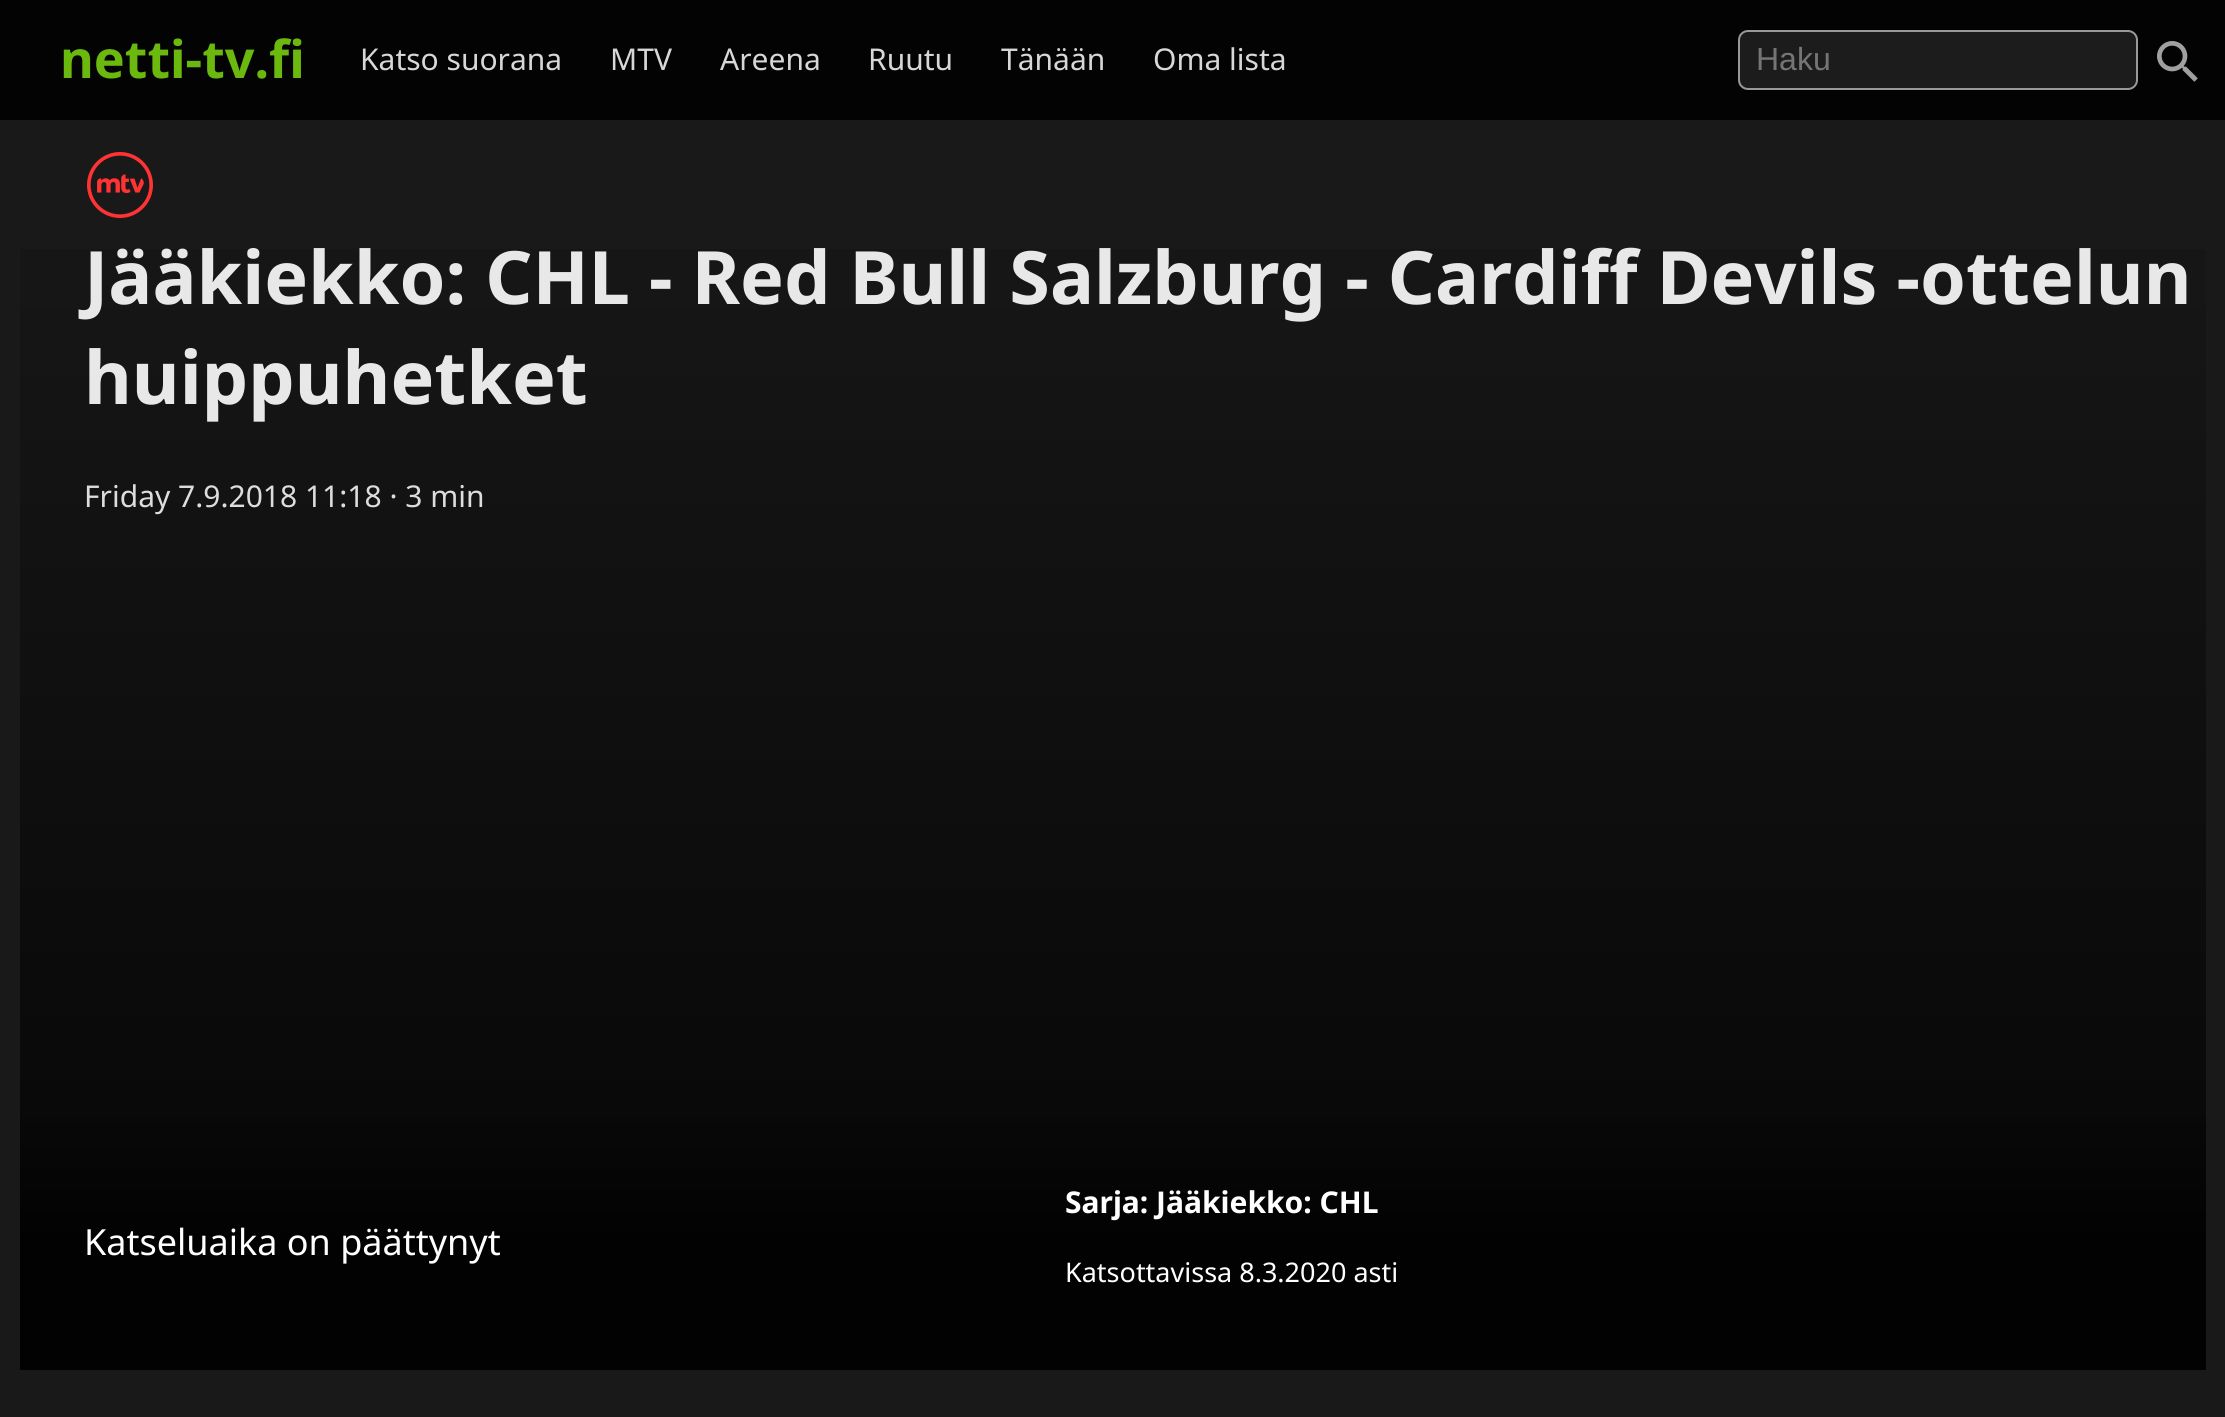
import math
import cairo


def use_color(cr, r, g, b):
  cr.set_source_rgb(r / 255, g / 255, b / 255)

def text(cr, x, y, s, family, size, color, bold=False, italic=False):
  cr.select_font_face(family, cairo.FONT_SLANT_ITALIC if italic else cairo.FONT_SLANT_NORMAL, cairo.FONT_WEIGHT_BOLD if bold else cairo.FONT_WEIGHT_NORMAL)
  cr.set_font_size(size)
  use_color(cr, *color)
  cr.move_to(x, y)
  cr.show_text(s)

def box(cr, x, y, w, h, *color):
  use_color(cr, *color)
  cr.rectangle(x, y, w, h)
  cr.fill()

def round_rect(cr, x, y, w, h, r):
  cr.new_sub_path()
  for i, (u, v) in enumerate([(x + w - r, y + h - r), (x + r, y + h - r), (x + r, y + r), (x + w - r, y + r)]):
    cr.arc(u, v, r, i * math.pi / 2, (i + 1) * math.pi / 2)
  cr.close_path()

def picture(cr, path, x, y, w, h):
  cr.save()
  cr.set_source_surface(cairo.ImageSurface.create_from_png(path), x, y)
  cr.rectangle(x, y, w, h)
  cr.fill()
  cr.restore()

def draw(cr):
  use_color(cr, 25, 25, 25)
  cr.paint()
  box(cr, 0, 0, 2225, 120, 3, 3, 3)
  use_color(cr, 28, 28, 28)
  round_rect(cr, 1739, 31, 398, 58, 9)
  cr.fill_preserve()
  use_color(cr, 153, 153, 153)
  cr.stroke()
  picture(cr, "img_01.png", 2157, 41, 41, 41)
  gradient = cairo.LinearGradient(1113, 1370, 1113, 152)
  gradient.add_color_stop_rgba(0.1, 0.027, 0.027, 0.027, 1)
  gradient.add_color_stop_rgba(1, 0.094, 0.094, 0.094, 1)
  cr.set_source(gradient)
  cr.rectangle(20, 249, 2186, 867)
  cr.fill()
  picture(cr, "img_02.png", 87, 152, 66, 66)
  gradient = cairo.LinearGradient(1113, 1370, 1113, 1116)
  gradient.add_color_stop_rgba(0.5, 0.008, 0.008, 0.008, 1)
  gradient.add_color_stop_rgba(1, 0.031, 0.031, 0.031, 1)
  cr.set_source(gradient)
  cr.rectangle(20, 1116, 2186, 254)
  cr.fill()
  text(cr, 60, 78, "netti-tv.fi", "Noto Sans", 52, (107, 184, 15), bold=True)
  text(cr, 360, 70, "Katso suorana", "Noto Sans", 30, (215, 215, 215))
  text(cr, 610, 70, "MTV", "Noto Sans", 30, (215, 215, 215))
  text(cr, 720, 70, "Areena", "Noto Sans", 30, (215, 215, 215))
  text(cr, 868, 70, "Ruutu", "Noto Sans", 30, (215, 215, 215))
  text(cr, 1001, 70, "Tänään", "Noto Sans", 30, (215, 215, 215))
  text(cr, 1153, 70, "Oma lista", "Noto Sans", 30, (215, 215, 215))
  text(cr, 1756, 70, "Haku", "Liberation Sans", 32, (117, 117, 117))
  text(cr, 84, 304, "Jääkiekko: CHL - Red Bull Salzburg - Cardiff Devils -ottelun", "Noto Sans", 73.6, (232, 232, 232), bold=True)
  text(cr, 84, 404, "huippuhetket", "Noto Sans", 73.6, (232, 232, 232), bold=True)
  text(cr, 84, 507, "Friday 7.9.2018 11:18 · 3 min", "Noto Sans", 30, (221, 221, 221))
  text(cr, 84, 1255, "Katseluaika on päättynyt", "Noto Sans", 36, (255, 255, 255))
  text(cr, 1065, 1213, "Sarja: Jääkiekko: CHL", "Noto Sans", 30, (255, 255, 255), bold=True)
  text(cr, 1065, 1282, "Katsottavissa 8.3.2020 asti", "Noto Sans", 27, (255, 255, 255))


surface = cairo.ImageSurface(cairo.FORMAT_RGB24, 2225, 1417)
cr = cairo.Context(surface)
options = cairo.FontOptions()
options.set_hint_metrics(cairo.HINT_METRICS_OFF)
options.set_hint_style(cairo.HINT_STYLE_NONE)
cr.set_font_options(options)
cr.set_miter_limit(4)
draw(cr)
surface.write_to_png("out.png")
